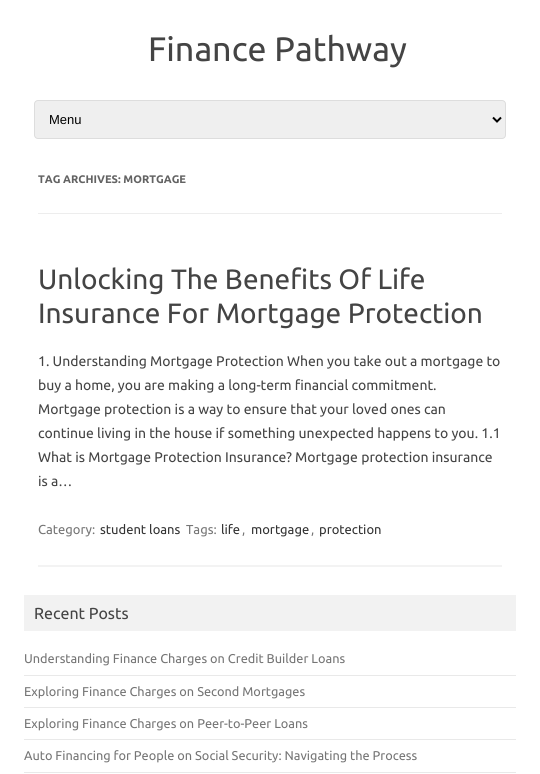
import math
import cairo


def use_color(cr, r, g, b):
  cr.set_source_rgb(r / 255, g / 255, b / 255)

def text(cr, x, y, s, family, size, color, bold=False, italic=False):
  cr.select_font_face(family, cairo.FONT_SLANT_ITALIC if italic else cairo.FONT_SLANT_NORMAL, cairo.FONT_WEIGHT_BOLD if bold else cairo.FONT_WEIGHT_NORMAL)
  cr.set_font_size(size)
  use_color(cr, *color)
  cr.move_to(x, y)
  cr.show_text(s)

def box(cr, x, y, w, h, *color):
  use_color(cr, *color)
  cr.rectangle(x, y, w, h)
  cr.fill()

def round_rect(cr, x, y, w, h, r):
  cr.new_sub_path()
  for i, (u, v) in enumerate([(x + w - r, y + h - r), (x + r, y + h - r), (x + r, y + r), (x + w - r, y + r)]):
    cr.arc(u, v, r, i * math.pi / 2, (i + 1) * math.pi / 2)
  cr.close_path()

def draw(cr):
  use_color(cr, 255, 255, 255)
  cr.paint()
  use_color(cr, 239, 239, 239)
  round_rect(cr, 34.5, 100.5, 471, 38, 3.5)
  cr.fill_preserve()
  use_color(cr, 221, 221, 221)
  cr.set_line_width(1)
  cr.stroke()
  cr.new_path()
  cr.move_to(493, 117.5)
  cr.line_to(497, 121.5)
  cr.line_to(501, 117.5)
  use_color(cr, 0, 0, 0)
  cr.set_line_width(2)
  cr.stroke()
  box(cr, 38, 213, 464, 1, 237, 237, 237)
  box(cr, 38, 565, 464, 2, 243, 243, 243)
  box(cr, 24, 595, 492, 36, 242, 242, 242)
  box(cr, 24, 675, 492, 1, 233, 233, 233)
  box(cr, 24, 707, 492, 1, 233, 233, 233)
  box(cr, 24, 739, 492, 1, 233, 233, 233)
  box(cr, 24, 772, 492, 1, 233, 233, 233)
  text(cr, 148, 61, "Finance Pathway", "Ubuntu", 34, (68, 68, 68))
  text(cr, 49, 124, "Menu", "Liberation Sans", 13, (0, 0, 0))
  text(cr, 38, 183, "TAG ARCHIVES: MORTGAGE", "Ubuntu", 11, (99, 99, 99), bold=True)
  text(cr, 38, 289, "Unlocking The Benefits Of Life", "Ubuntu", 28, (68, 68, 68))
  text(cr, 38, 323, "Insurance For Mortgage Protection", "Ubuntu", 28, (68, 68, 68))
  text(cr, 38, 366, "1. Understanding Mortgage Protection When you take out a mortgage to", "Ubuntu", 14, (68, 68, 68))
  text(cr, 38, 390, "buy a home, you are making a long-term financial commitment.", "Ubuntu", 14, (68, 68, 68))
  text(cr, 38, 414, "Mortgage protection is a way to ensure that your loved ones can", "Ubuntu", 14, (68, 68, 68))
  text(cr, 38, 438, "continue living in the house if something unexpected happens to you. 1.1", "Ubuntu", 14, (68, 68, 68))
  text(cr, 38, 462, "What is Mortgage Protection Insurance? Mortgage protection insurance", "Ubuntu", 14, (68, 68, 68))
  text(cr, 38, 486, "is a…", "Ubuntu", 14, (68, 68, 68))
  text(cr, 38, 534, "Category:", "Ubuntu", 13, (117, 117, 117))
  text(cr, 100, 534, "student loans", "Ubuntu", 13, (51, 51, 51))
  text(cr, 186, 534, "Tags:", "Ubuntu", 13, (117, 117, 117))
  text(cr, 221, 534, "life", "Ubuntu", 13, (51, 51, 51))
  text(cr, 242, 534, ",", "Ubuntu", 13, (117, 117, 117))
  text(cr, 251, 534, "mortgage", "Ubuntu", 13, (51, 51, 51))
  text(cr, 311, 534, ",", "Ubuntu", 13, (117, 117, 117))
  text(cr, 319, 534, "protection", "Ubuntu", 13, (51, 51, 51))
  text(cr, 34, 619, "Recent Posts", "Ubuntu", 16, (68, 68, 68))
  text(cr, 24, 663, "Understanding Finance Charges on Credit Builder Loans", "Ubuntu", 12.75, (117, 117, 117))
  text(cr, 24, 696, "Exploring Finance Charges on Second Mortgages", "Ubuntu", 12.75, (117, 117, 117))
  text(cr, 24, 728, "Exploring Finance Charges on Peer-to-Peer Loans", "Ubuntu", 12.75, (117, 117, 117))
  text(cr, 24, 760, "Auto Financing for People on Social Security: Navigating the Process", "Ubuntu", 12.75, (117, 117, 117))


surface = cairo.ImageSurface(cairo.FORMAT_RGB24, 540, 774)
cr = cairo.Context(surface)
options = cairo.FontOptions()
options.set_hint_metrics(cairo.HINT_METRICS_OFF)
options.set_hint_style(cairo.HINT_STYLE_NONE)
cr.set_font_options(options)
cr.set_miter_limit(4)
draw(cr)
surface.write_to_png("out.png")
